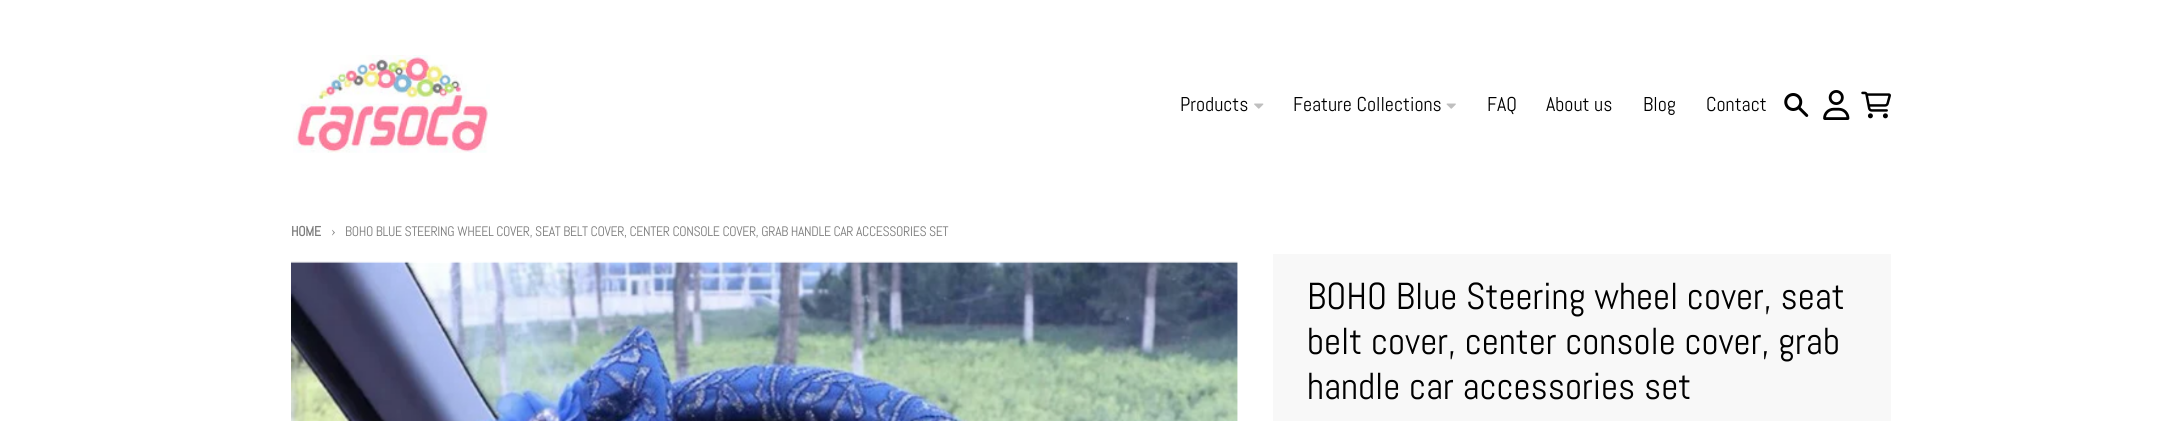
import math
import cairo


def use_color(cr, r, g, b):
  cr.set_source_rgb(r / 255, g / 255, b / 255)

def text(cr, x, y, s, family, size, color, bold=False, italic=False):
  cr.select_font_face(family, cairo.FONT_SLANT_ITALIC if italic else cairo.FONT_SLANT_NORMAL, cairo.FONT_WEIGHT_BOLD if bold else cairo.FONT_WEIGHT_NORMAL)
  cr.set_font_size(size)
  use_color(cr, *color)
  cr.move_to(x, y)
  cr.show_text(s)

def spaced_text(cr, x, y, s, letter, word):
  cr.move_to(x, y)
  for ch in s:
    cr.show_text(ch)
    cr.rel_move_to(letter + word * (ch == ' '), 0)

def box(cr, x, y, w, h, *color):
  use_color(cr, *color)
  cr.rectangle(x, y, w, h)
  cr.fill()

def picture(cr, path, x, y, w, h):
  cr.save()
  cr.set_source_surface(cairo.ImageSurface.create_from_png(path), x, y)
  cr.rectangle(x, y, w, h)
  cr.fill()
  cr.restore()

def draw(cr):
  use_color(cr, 255, 255, 255)
  cr.paint()
  picture(cr, "img_01.png", 293, 55, 197, 98)
  picture(cr, "img_02.png", 1254, 103, 10, 6)
  picture(cr, "img_03.png", 1446, 103, 10, 6)
  picture(cr, "img_04.png", 1784, 93, 25, 24)
  picture(cr, "img_05.png", 1823, 90, 27, 30)
  picture(cr, "img_06.png", 1861, 91, 30, 28)
  picture(cr, "img_07.png", 291, 261, 947, 160)
  box(cr, 1273, 254, 618, 167, 248, 248, 248)
  text(cr, 1180, 111, "Products", "Abel", 20, (0, 0, 0))
  text(cr, 1293, 111, "Feature Collections", "Abel", 20, (0, 0, 0))
  text(cr, 1487, 111, "FAQ", "Abel", 20, (0, 0, 0))
  text(cr, 1546, 111, "About us", "Abel", 20, (0, 0, 0))
  text(cr, 1643, 111, "Blog", "Abel", 20, (0, 0, 0))
  text(cr, 1706, 111, "Contact", "Abel", 20, (0, 0, 0))
  cr.select_font_face("Abel", cairo.FONT_SLANT_NORMAL, cairo.FONT_WEIGHT_BOLD)
  cr.set_font_size(13.75)
  use_color(cr, 123, 123, 123)
  spaced_text(cr, 291, 236, "HOME", -0.34, 0)
  cr.select_font_face("Abel")
  cr.set_font_size(15)
  spaced_text(cr, 331, 236, "›", -0.34, 0)
  cr.set_font_size(13.75)
  spaced_text(cr, 345, 236, "BOHO BLUE STEERING WHEEL COVER, SEAT BELT COVER, CENTER CONSOLE COVER, GRAB HANDLE CAR ACCESSORIES SET", -0.34, 0)
  text(cr, 1307, 309, "BOHO Blue Steering wheel cover, seat", "Abel", 37.5, (0, 0, 0))
  text(cr, 1307, 354, "belt cover, center console cover, grab", "Abel", 37.5, (0, 0, 0))
  text(cr, 1307, 399, "handle car accessories set", "Abel", 37.5, (0, 0, 0))


surface = cairo.ImageSurface(cairo.FORMAT_RGB24, 2182, 421)
cr = cairo.Context(surface)
options = cairo.FontOptions()
options.set_hint_metrics(cairo.HINT_METRICS_OFF)
options.set_hint_style(cairo.HINT_STYLE_NONE)
cr.set_font_options(options)
cr.set_miter_limit(4)
draw(cr)
surface.write_to_png("out.png")
